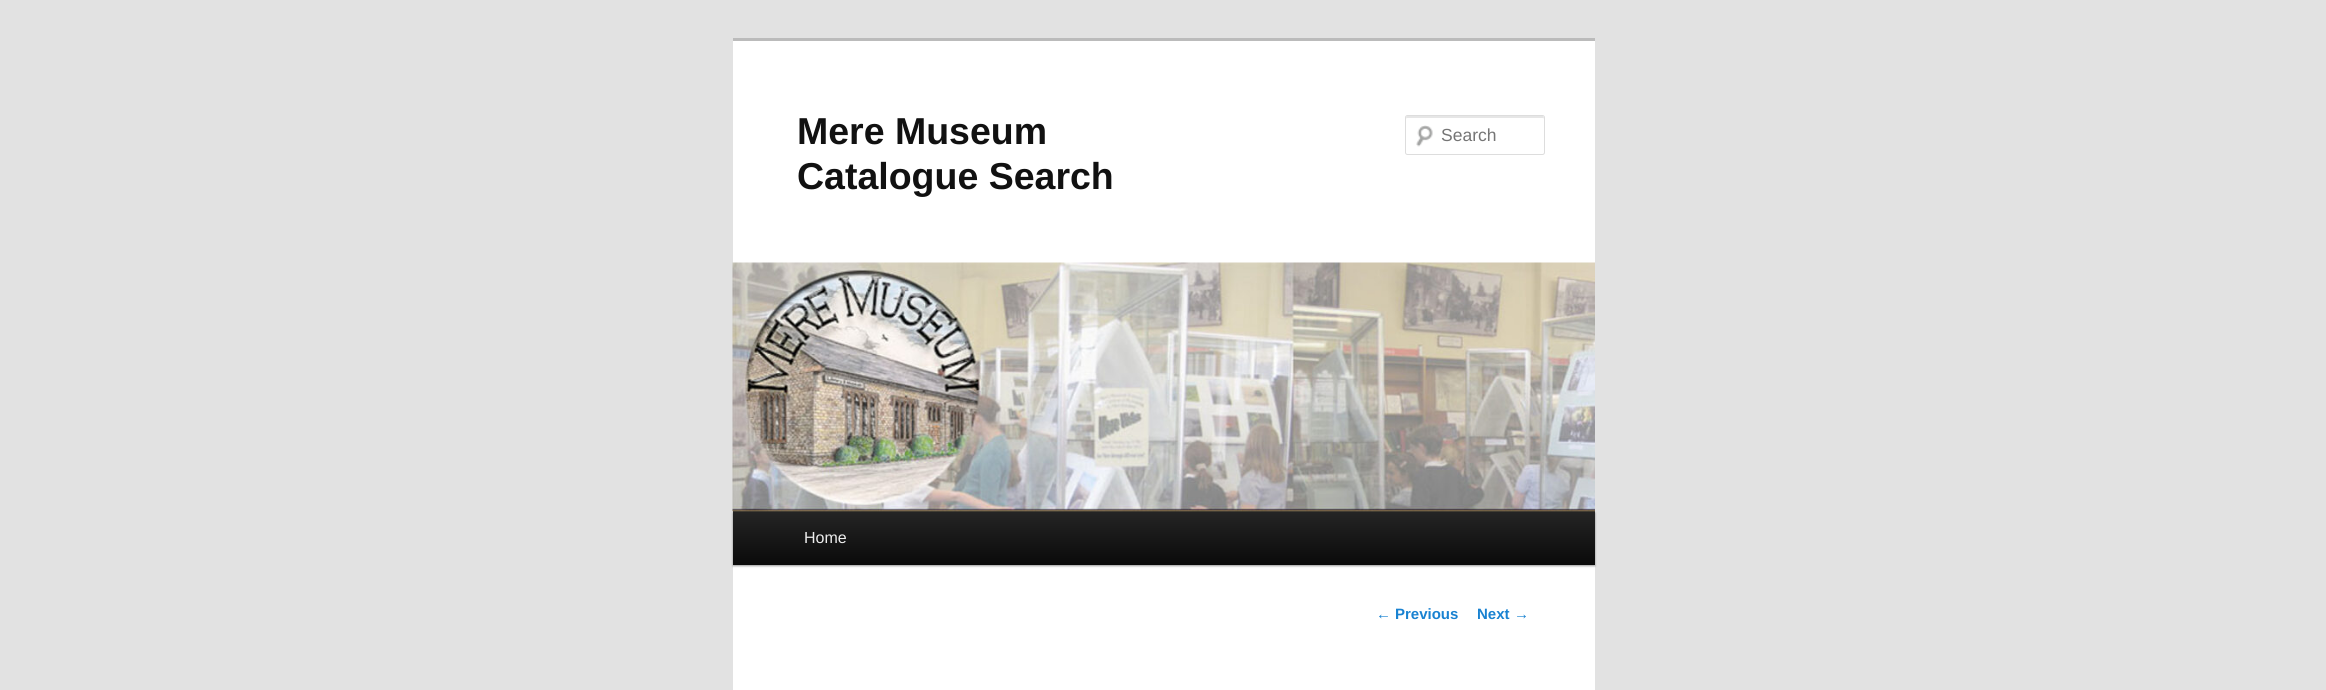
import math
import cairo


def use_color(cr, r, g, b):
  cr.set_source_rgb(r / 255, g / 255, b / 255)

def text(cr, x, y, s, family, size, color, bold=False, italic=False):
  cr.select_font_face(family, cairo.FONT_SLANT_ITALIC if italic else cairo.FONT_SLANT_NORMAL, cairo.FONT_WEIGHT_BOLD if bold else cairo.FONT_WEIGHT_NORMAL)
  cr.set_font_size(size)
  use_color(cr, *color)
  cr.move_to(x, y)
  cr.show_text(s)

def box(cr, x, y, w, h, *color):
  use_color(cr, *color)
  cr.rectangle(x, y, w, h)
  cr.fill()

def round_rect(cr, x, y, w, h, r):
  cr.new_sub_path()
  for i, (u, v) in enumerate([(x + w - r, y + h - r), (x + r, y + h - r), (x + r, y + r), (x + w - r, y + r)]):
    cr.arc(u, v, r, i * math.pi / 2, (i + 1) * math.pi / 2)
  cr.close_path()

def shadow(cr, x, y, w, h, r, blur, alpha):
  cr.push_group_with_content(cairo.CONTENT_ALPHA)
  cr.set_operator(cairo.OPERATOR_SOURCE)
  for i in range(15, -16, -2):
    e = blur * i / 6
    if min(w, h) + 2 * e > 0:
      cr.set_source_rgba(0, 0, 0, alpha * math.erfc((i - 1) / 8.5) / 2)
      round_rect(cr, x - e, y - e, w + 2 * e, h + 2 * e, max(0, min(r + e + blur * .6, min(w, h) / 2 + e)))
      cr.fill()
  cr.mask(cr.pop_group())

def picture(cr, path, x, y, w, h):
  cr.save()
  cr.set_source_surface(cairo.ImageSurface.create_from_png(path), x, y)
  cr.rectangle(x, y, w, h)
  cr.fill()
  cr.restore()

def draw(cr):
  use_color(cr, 226, 226, 226)
  cr.paint()
  box(cr, 733, 41, 862, 649, 255, 255, 255)
  box(cr, 733, 38, 862, 3, 187, 187, 187)
  picture(cr, "img_01.png", 1416, 125, 17, 22)
  use_color(cr, 230, 230, 230)
  cr.new_path()
  cr.move_to(1408, 118)
  cr.line_to(1542, 118)
  cr.curve_to(1543, 118, 1544, 118, 1544, 119)
  cr.curve_to(1544, 118, 1544, 117, 1543, 116)
  cr.line_to(1407, 116)
  cr.curve_to(1406, 116, 1406, 118, 1406, 119)
  cr.curve_to(1406, 118, 1407, 118, 1408, 118)
  cr.close_path()
  cr.fill()
  round_rect(cr, 1405.5, 115.5, 139, 39, 2)
  use_color(cr, 221, 221, 221)
  cr.set_line_width(1)
  cr.stroke()
  use_color(cr, 0, 0, 0)
  shadow(cr, 733, 513, 862, 53, 0, 1, 0.4)
  gradient = cairo.LinearGradient(1164, 511, 1164, 565)
  gradient.add_color_stop_rgba(0, 0.145, 0.145, 0.145, 1)
  gradient.add_color_stop_rgba(1, 0.039, 0.039, 0.039, 1)
  cr.set_source(gradient)
  cr.rectangle(733, 511, 862, 54)
  cr.fill()
  picture(cr, "img_02.png", 732, 262, 863, 250)
  text(cr, 797, 144, "Mere Museum", "Liberation Sans", 37.5, (17, 17, 17), bold=True)
  text(cr, 797, 189, "Catalogue Search", "Liberation Sans", 37.5, (17, 17, 17), bold=True)
  text(cr, 1441, 141, "Search", "Liberation Sans", 17.5, (117, 117, 117))
  text(cr, 804, 543, "Home", "Liberation Sans", 16, (238, 238, 238))
  text(cr, 1376, 619, "←", "Liberation Sans", 15, (25, 130, 209))
  text(cr, 1395, 619, "Previous", "Liberation Sans", 15, (25, 130, 209), bold=True)
  text(cr, 1477, 619, "Next", "Liberation Sans", 15, (25, 130, 209), bold=True)
  text(cr, 1514, 619, "→", "Liberation Sans", 15, (25, 130, 209))


surface = cairo.ImageSurface(cairo.FORMAT_RGB24, 2326, 690)
cr = cairo.Context(surface)
options = cairo.FontOptions()
options.set_hint_metrics(cairo.HINT_METRICS_OFF)
options.set_hint_style(cairo.HINT_STYLE_NONE)
cr.set_font_options(options)
cr.set_miter_limit(4)
draw(cr)
surface.write_to_png("out.png")
